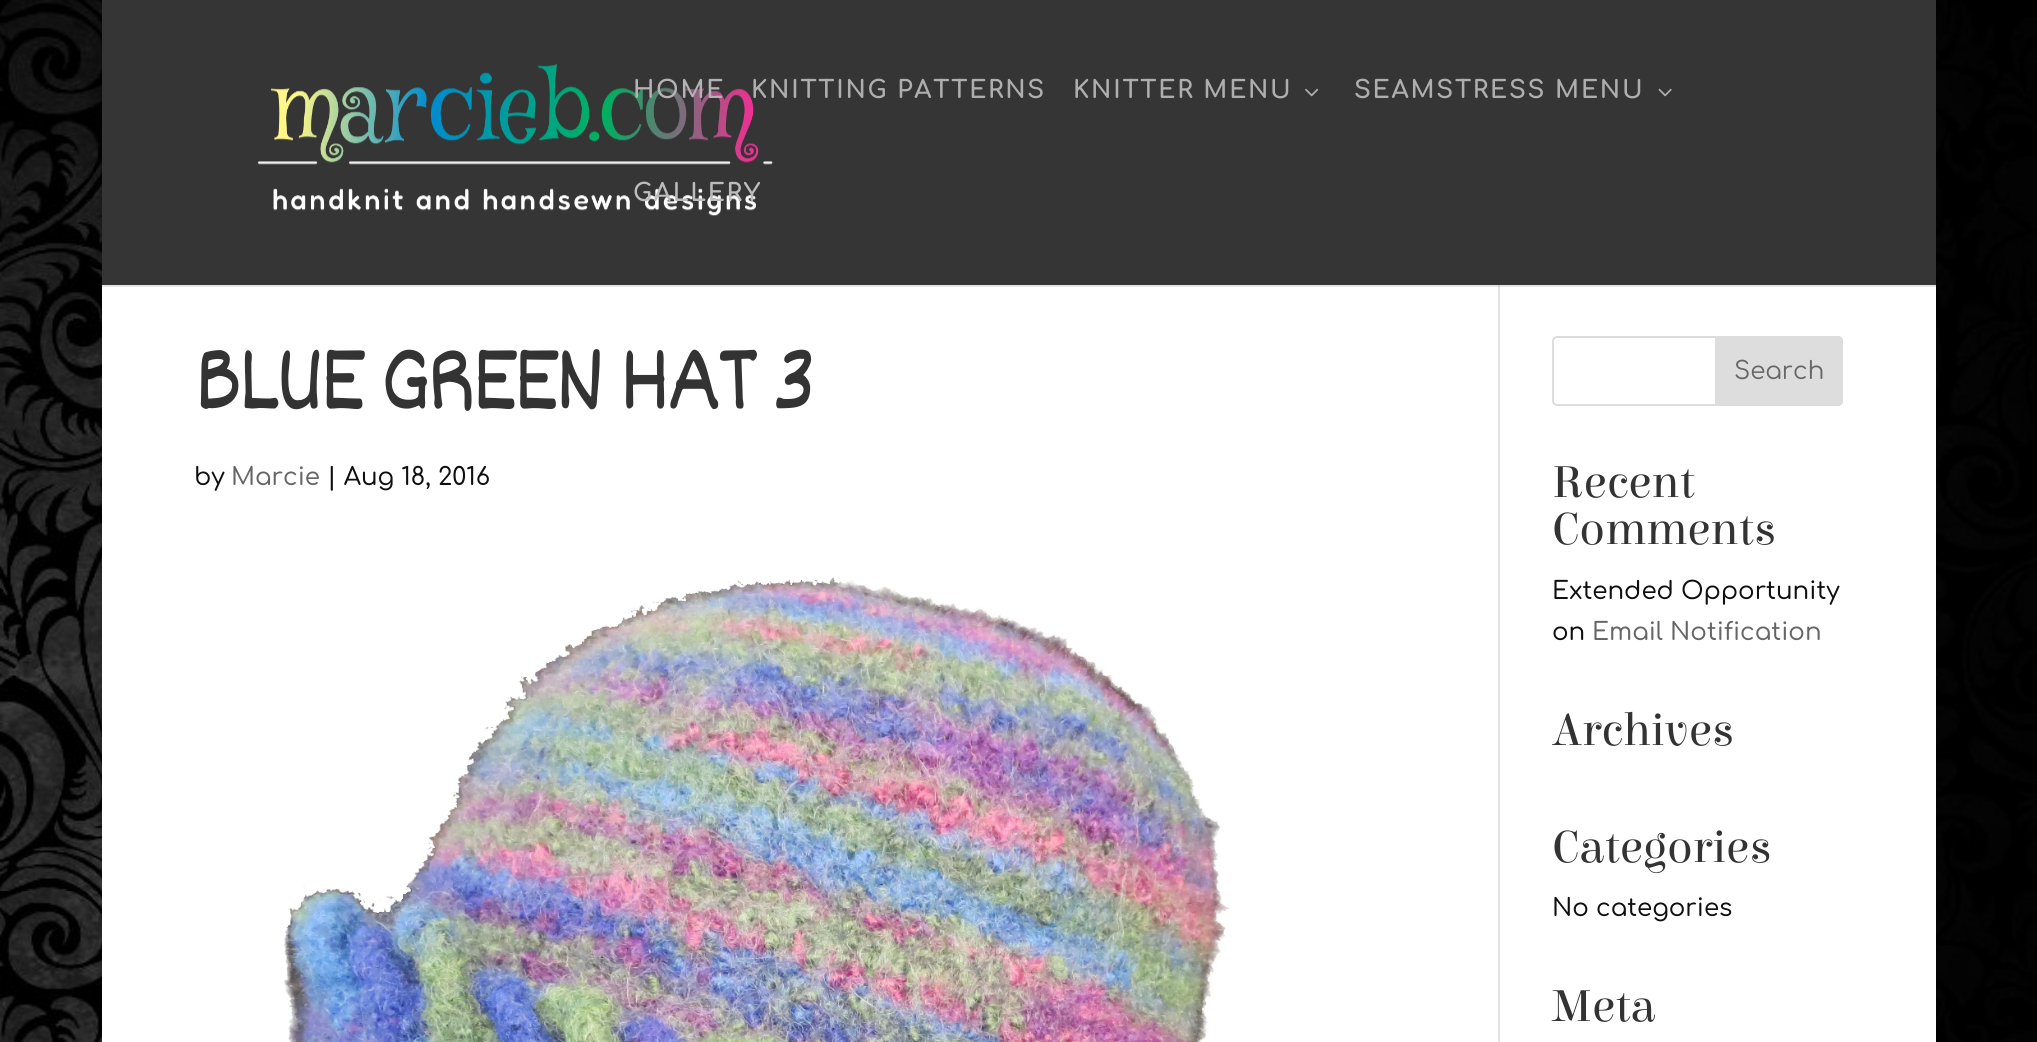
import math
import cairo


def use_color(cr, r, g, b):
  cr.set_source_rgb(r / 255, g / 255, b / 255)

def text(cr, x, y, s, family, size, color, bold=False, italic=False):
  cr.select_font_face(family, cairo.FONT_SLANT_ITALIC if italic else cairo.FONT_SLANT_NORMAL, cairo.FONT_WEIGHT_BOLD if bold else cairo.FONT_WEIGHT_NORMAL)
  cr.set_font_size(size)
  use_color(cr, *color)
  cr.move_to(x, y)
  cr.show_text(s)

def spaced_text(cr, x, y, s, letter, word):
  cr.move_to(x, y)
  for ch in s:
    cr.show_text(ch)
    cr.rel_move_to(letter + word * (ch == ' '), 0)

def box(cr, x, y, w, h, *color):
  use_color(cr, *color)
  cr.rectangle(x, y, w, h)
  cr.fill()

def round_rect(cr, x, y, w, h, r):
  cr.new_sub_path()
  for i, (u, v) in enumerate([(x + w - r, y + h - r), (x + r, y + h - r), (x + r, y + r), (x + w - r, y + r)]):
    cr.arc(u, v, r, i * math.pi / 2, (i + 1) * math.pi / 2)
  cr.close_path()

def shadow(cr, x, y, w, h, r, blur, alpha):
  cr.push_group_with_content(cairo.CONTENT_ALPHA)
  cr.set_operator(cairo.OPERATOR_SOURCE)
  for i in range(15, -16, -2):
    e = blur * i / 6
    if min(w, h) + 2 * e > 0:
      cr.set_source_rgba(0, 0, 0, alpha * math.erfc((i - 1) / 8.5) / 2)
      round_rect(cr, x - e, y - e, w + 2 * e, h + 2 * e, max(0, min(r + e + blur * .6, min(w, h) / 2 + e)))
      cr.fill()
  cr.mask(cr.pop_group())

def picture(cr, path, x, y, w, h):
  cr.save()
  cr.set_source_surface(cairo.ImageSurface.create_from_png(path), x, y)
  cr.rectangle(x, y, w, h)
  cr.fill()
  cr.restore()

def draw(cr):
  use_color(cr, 255, 255, 255)
  cr.paint()
  picture(cr, "img_01.png", 0, 0, 2037, 1042)
  use_color(cr, 0, 0, 0)
  shadow(cr, 102, -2, 1834, 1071, 0, 9, 0.2)
  box(cr, 102, 285, 1834, 757, 255, 255, 255)
  box(cr, 1498, 285, 2, 757, 226, 226, 226)
  cr.set_source_rgba(0, 0, 0, 0.1)
  cr.new_path()
  cr.move_to(102, 285)
  cr.line_to(102, 287)
  cr.line_to(1936, 287)
  cr.line_to(1936, 2)
  cr.line_to(1936, 285)
  cr.close_path()
  cr.fill()
  box(cr, 102, 0, 1834, 285, 53, 53, 53)
  picture(cr, "img_02.png", 257, 64, 516, 152)
  picture(cr, "img_03.png", 1305, 88, 14, 9)
  picture(cr, "img_04.png", 1658, 88, 14, 9)
  picture(cr, "img_05.png", 283, 577, 946, 465)
  round_rect(cr, 1553, 337, 289, 68, 4)
  use_color(cr, 221, 221, 221)
  cr.stroke()
  cr.new_path()
  cr.move_to(1716, 337)
  cr.line_to(1838, 337)
  cr.curve_to(1840, 337, 1842, 339, 1842, 341)
  cr.line_to(1842, 401)
  cr.curve_to(1842, 403, 1840, 405, 1838, 405)
  cr.line_to(1716, 405)
  cr.close_path()
  cr.fill_preserve()
  cr.stroke()
  cr.select_font_face("Comfortaa", cairo.FONT_SLANT_NORMAL, cairo.FONT_WEIGHT_BOLD)
  cr.set_font_size(24.5)
  use_color(cr, 180, 178, 180)
  spaced_text(cr, 633, 98, "HOME", 1.75, 0)
  use_color(cr, 174, 174, 174)
  spaced_text(cr, 751, 98, "KNITTING PATTERNS", 1.75, 0)
  spaced_text(cr, 1073, 98, "KNITTER MENU", 1.75, 0)
  spaced_text(cr, 1354, 98, "SEAMSTRESS MENU", 1.75, 0)
  use_color(cr, 188, 188, 188)
  spaced_text(cr, 633, 201, "GALLERY", 1.75, 0)
  cr.select_font_face("Dekko")
  cr.set_font_size(103.25)
  use_color(cr, 51, 51, 51)
  spaced_text(cr, 194, 408, "BLUE GREEN HAT 3", -5.25, 0)
  text(cr, 194, 485, "by", "Comfortaa Medium", 24.5, (15, 15, 15))
  text(cr, 231, 485, "Marcie", "Comfortaa Medium", 24.5, (102, 102, 102))
  text(cr, 327, 485, "| Aug 18, 2016", "Comfortaa Medium", 24.5, (15, 15, 15))
  text(cr, 1734, 379, "Search", "Comfortaa", 24.5, (102, 102, 102))
  text(cr, 1552, 497, "Recent", "Elsie", 47.25, (51, 51, 51))
  text(cr, 1552, 544, "Comments", "Elsie", 47.25, (51, 51, 51))
  text(cr, 1552, 599, "Extended Opportunity", "Comfortaa Medium", 24.5, (15, 15, 15))
  text(cr, 1552, 640, "on", "Comfortaa Medium", 24.5, (15, 15, 15))
  text(cr, 1592, 640, "Email Notification", "Comfortaa Medium", 24.5, (102, 102, 102))
  text(cr, 1552, 745, "Archives", "Elsie", 47.25, (51, 51, 51))
  text(cr, 1552, 862, "Categories", "Elsie", 47.25, (51, 51, 51))
  text(cr, 1552, 916, "No categories", "Comfortaa Medium", 24.5, (15, 15, 15))
  text(cr, 1552, 1021, "Meta", "Elsie", 47.25, (51, 51, 51))


surface = cairo.ImageSurface(cairo.FORMAT_RGB24, 2037, 1042)
cr = cairo.Context(surface)
options = cairo.FontOptions()
options.set_hint_metrics(cairo.HINT_METRICS_OFF)
options.set_hint_style(cairo.HINT_STYLE_NONE)
cr.set_font_options(options)
cr.set_miter_limit(4)
draw(cr)
surface.write_to_png("out.png")
